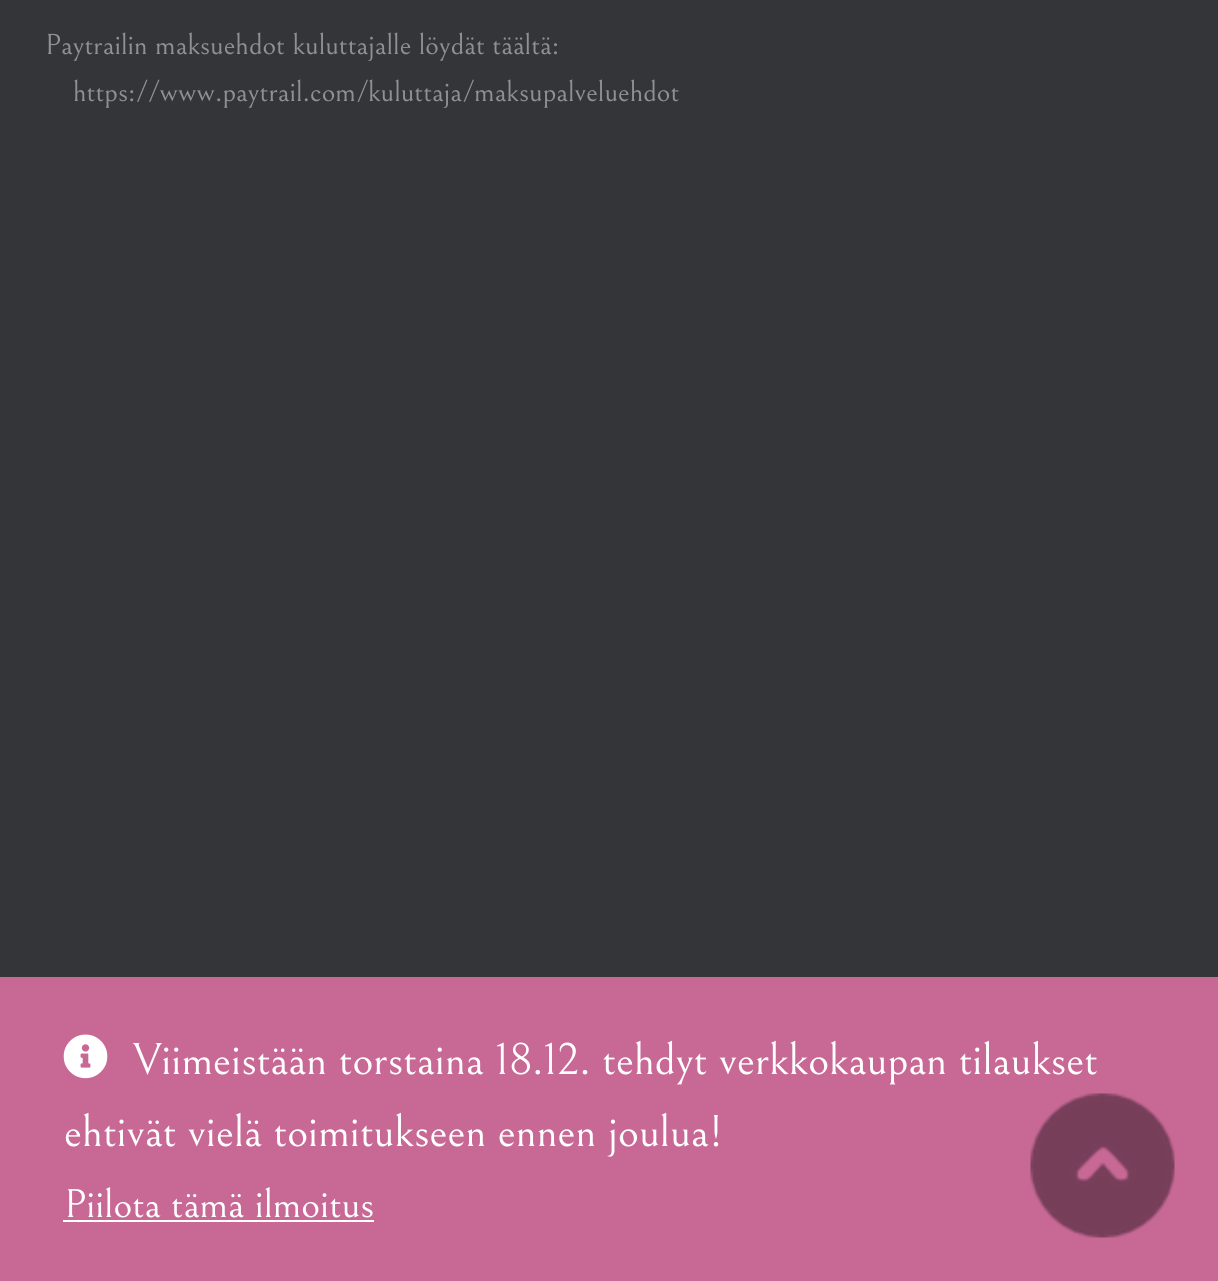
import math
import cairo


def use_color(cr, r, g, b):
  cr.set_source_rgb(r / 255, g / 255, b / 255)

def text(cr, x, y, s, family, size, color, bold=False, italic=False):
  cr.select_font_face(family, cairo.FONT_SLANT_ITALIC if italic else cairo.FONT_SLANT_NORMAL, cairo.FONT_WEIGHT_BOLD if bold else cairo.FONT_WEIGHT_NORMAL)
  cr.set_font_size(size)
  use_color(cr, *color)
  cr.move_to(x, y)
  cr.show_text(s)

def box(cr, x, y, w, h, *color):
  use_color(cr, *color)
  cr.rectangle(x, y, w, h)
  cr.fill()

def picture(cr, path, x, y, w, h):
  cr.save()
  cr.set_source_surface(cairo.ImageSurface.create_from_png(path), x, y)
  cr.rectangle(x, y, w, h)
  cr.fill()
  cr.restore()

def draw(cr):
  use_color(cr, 52, 53, 56)
  cr.paint()
  box(cr, 0, 977, 1218, 304, 199, 104, 149)
  picture(cr, "img_01.png", 63, 1034, 45, 45)
  box(cr, 63, 1220, 311, 2, 255, 255, 255)
  picture(cr, "img_02.png", 1030, 1093, 145, 145)
  text(cr, 45, 54, "Paytrailin maksuehdot kuluttajalle löydät täältä:", "Bellefair", 29.25, (143, 144, 146))
  text(cr, 73, 101, "https://www.paytrail.com/kuluttaja/maksupalveluehdot", "Bellefair", 29.25, (143, 144, 146))
  text(cr, 133, 1074, "Viimeistään torstaina 18.12. tehdyt verkkokaupan tilaukset", "Bellefair", 45, (255, 255, 255))
  text(cr, 64, 1146, "ehtivät vielä toimitukseen ennen joulua!", "Bellefair", 45, (255, 255, 255))
  text(cr, 64, 1217, "Piilota tämä ilmoitus", "Bellefair", 40.5, (255, 255, 255))


surface = cairo.ImageSurface(cairo.FORMAT_RGB24, 1218, 1281)
cr = cairo.Context(surface)
options = cairo.FontOptions()
options.set_hint_metrics(cairo.HINT_METRICS_OFF)
options.set_hint_style(cairo.HINT_STYLE_NONE)
cr.set_font_options(options)
cr.set_miter_limit(4)
draw(cr)
surface.write_to_png("out.png")
